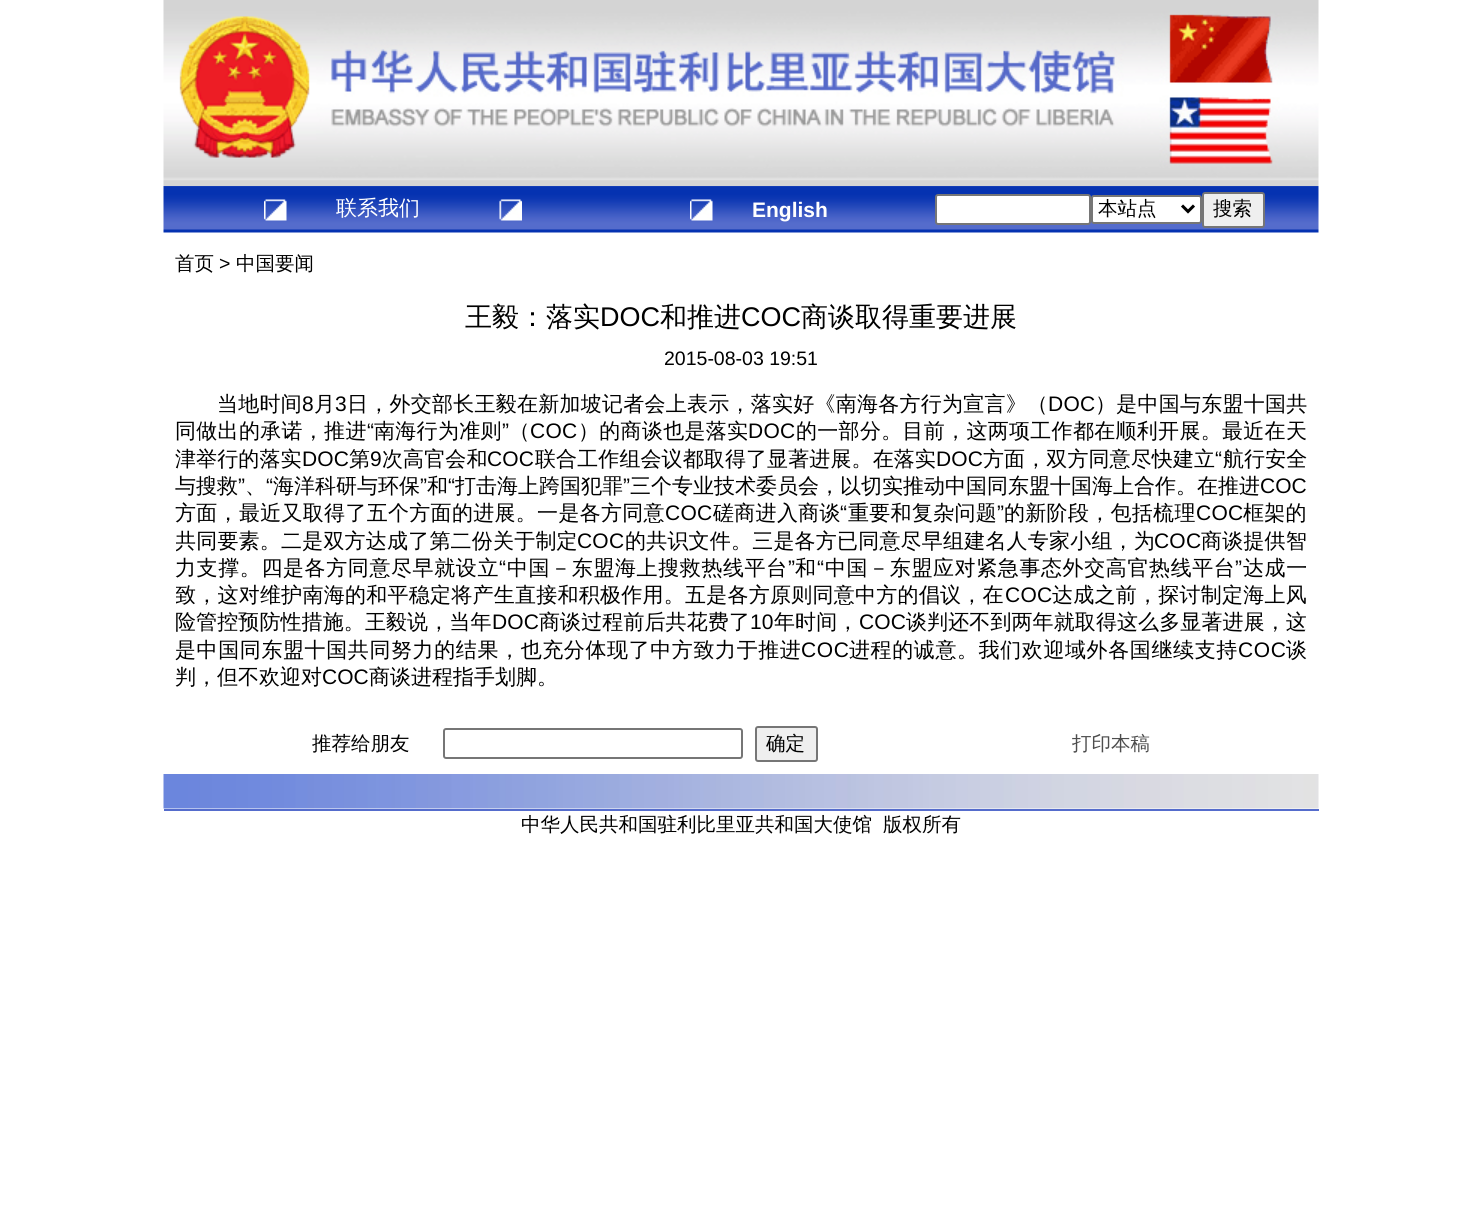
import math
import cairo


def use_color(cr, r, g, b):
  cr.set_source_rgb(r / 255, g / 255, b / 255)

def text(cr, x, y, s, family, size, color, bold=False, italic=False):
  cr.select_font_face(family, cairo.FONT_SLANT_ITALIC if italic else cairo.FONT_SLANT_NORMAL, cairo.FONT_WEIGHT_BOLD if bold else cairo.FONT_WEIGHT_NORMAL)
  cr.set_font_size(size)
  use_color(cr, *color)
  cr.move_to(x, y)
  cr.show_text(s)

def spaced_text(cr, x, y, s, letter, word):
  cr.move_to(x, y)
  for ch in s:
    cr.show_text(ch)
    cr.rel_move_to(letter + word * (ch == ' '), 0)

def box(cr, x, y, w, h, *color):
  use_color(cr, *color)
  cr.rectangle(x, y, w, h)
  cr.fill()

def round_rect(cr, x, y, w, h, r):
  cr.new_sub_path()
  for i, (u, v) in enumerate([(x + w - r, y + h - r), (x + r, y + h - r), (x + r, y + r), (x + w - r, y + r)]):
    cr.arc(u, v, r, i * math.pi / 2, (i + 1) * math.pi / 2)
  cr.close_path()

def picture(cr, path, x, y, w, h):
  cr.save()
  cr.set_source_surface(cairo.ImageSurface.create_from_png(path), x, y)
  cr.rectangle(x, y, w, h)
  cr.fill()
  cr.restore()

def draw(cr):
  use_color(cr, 255, 255, 255)
  cr.paint()
  picture(cr, "img_01.png", 163, 0, 1156, 186)
  picture(cr, "img_02.png", 163, 186, 1156, 47)
  picture(cr, "img_03.png", 264, 199, 23, 22)
  picture(cr, "img_04.png", 499, 199, 23, 22)
  picture(cr, "img_05.png", 690, 199, 23, 22)
  use_color(cr, 255, 255, 255)
  round_rect(cr, 936, 195, 154, 29, 2)
  cr.fill_preserve()
  use_color(cr, 118, 118, 118)
  cr.stroke()
  use_color(cr, 255, 255, 255)
  round_rect(cr, 1092, 196, 109, 27, 2)
  cr.fill_preserve()
  use_color(cr, 118, 118, 118)
  cr.stroke()
  cr.new_path()
  cr.move_to(1182, 205.5)
  cr.line_to(1188, 211.5)
  cr.line_to(1194, 205.5)
  use_color(cr, 0, 0, 0)
  cr.set_line_width(3)
  cr.stroke()
  use_color(cr, 239, 239, 239)
  round_rect(cr, 1203, 193, 61, 34, 2)
  cr.fill_preserve()
  use_color(cr, 118, 118, 118)
  cr.set_line_width(2)
  cr.stroke()
  round_rect(cr, 444, 729, 298, 29, 2)
  cr.stroke()
  use_color(cr, 239, 239, 239)
  round_rect(cr, 756, 727, 61, 34, 2)
  cr.fill_preserve()
  use_color(cr, 118, 118, 118)
  cr.stroke()
  box(cr, 164, 809, 1155, 2, 85, 108, 204)
  picture(cr, "img_06.png", 163, 774, 1156, 35)
  text(cr, 336, 215, "联系我们", "WenQuanYi Zen Hei Medium", 21, (255, 255, 255))
  text(cr, 752, 217, "English", "Liberation Sans", 21, (255, 255, 255), bold=True)
  text(cr, 1098, 215, "本站点", "WenQuanYi Zen Hei Medium", 19.5, (0, 0, 0))
  text(cr, 1213, 215, "搜索", "WenQuanYi Zen Hei Medium", 19.5, (0, 0, 0))
  text(cr, 175, 270, "首页", "WenQuanYi Zen Hei Medium", 19.5, (0, 0, 0))
  text(cr, 219, 270, ">", "Liberation Sans", 19.5, (0, 0, 0))
  text(cr, 236, 270, "中国要闻", "WenQuanYi Zen Hei Medium", 19.5, (0, 0, 0))
  text(cr, 465, 326, "王毅：落实", "WenQuanYi Zen Hei Medium", 27, (0, 0, 0))
  text(cr, 600, 326, "DOC", "Liberation Sans", 27, (0, 0, 0))
  text(cr, 660, 326, "和推进", "WenQuanYi Zen Hei Medium", 27, (0, 0, 0))
  text(cr, 741, 326, "COC", "Liberation Sans", 27, (0, 0, 0))
  text(cr, 801, 326, "商谈取得重要进展", "WenQuanYi Zen Hei Medium", 27, (0, 0, 0))
  text(cr, 664, 365, "2015-08-03 19:51", "Liberation Sans", 19.5, (0, 0, 0))
  cr.select_font_face("WenQuanYi Zen Hei Medium")
  cr.set_font_size(21)
  spaced_text(cr, 217, 411, "当地时间", 0.25, 0)
  cr.select_font_face("Liberation Sans")
  spaced_text(cr, 302, 411, "8", 0.25, 0)
  cr.select_font_face("WenQuanYi Zen Hei Medium")
  spaced_text(cr, 314, 411, "月", 0.25, 0)
  cr.select_font_face("Liberation Sans")
  spaced_text(cr, 335, 411, "3", 0.25, 0)
  cr.select_font_face("WenQuanYi Zen Hei Medium")
  spaced_text(cr, 347, 411, "日，外交部长王毅在新加坡记者会上表示，落实好《南海各方行为宣言》（", 0.25, 0)
  cr.select_font_face("Liberation Sans")
  spaced_text(cr, 1048, 411, "DOC", 0.25, 0)
  cr.select_font_face("WenQuanYi Zen Hei Medium")
  spaced_text(cr, 1095, 411, "）是中国与东盟十国共", 0.25, 0)
  spaced_text(cr, 175, 438, "同做出的承诺，推进", 0.3, 0)
  cr.select_font_face("Liberation Sans")
  spaced_text(cr, 367, 438, "“", 0.3, 0)
  cr.select_font_face("WenQuanYi Zen Hei Medium")
  spaced_text(cr, 374, 438, "南海行为准则", 0.3, 0)
  cr.select_font_face("Liberation Sans")
  spaced_text(cr, 502, 438, "”", 0.3, 0)
  cr.select_font_face("WenQuanYi Zen Hei Medium")
  spaced_text(cr, 509, 438, "（", 0.3, 0)
  cr.select_font_face("Liberation Sans")
  spaced_text(cr, 530, 438, "COC", 0.3, 0)
  cr.select_font_face("WenQuanYi Zen Hei Medium")
  spaced_text(cr, 578, 438, "）的商谈也是落实", 0.3, 0)
  cr.select_font_face("Liberation Sans")
  spaced_text(cr, 748, 438, "DOC", 0.3, 0)
  cr.select_font_face("WenQuanYi Zen Hei Medium")
  spaced_text(cr, 796, 438, "的一部分。目前，这两项工作都在顺利开展。最近在天", 0.3, 0)
  spaced_text(cr, 175, 466, "津举行的落实", 0.1, 0)
  cr.select_font_face("Liberation Sans")
  spaced_text(cr, 302, 466, "DOC", 0.1, 0)
  cr.select_font_face("WenQuanYi Zen Hei Medium")
  spaced_text(cr, 349, 466, "第", 0.1, 0)
  cr.select_font_face("Liberation Sans")
  spaced_text(cr, 370, 466, "9", 0.1, 0)
  cr.select_font_face("WenQuanYi Zen Hei Medium")
  spaced_text(cr, 382, 466, "次高官会和", 0.1, 0)
  cr.select_font_face("Liberation Sans")
  spaced_text(cr, 487, 466, "COC", 0.1, 0)
  cr.select_font_face("WenQuanYi Zen Hei Medium")
  spaced_text(cr, 535, 466, "联合工作组会议都取得了显著进展。在落实", 0.1, 0)
  cr.select_font_face("Liberation Sans")
  spaced_text(cr, 936, 466, "DOC", 0.1, 0)
  cr.select_font_face("WenQuanYi Zen Hei Medium")
  spaced_text(cr, 983, 466, "方面，双方同意尽快建立", 0.1, 0)
  cr.select_font_face("Liberation Sans")
  spaced_text(cr, 1215, 466, "“", 0.1, 0)
  cr.select_font_face("WenQuanYi Zen Hei Medium")
  spaced_text(cr, 1223, 466, "航行安全", 0.1, 0)
  text(cr, 175, 493, "与搜救", "WenQuanYi Zen Hei Medium", 21, (0, 0, 0))
  text(cr, 238, 493, "”", "Liberation Sans", 21, (0, 0, 0))
  text(cr, 245, 493, "、", "WenQuanYi Zen Hei Medium", 21, (0, 0, 0))
  text(cr, 266, 493, "“", "Liberation Sans", 21, (0, 0, 0))
  text(cr, 273, 493, "海洋科研与环保", "WenQuanYi Zen Hei Medium", 21, (0, 0, 0))
  text(cr, 420, 493, "”", "Liberation Sans", 21, (0, 0, 0))
  text(cr, 427, 493, "和", "WenQuanYi Zen Hei Medium", 21, (0, 0, 0))
  text(cr, 448, 493, "“", "Liberation Sans", 21, (0, 0, 0))
  text(cr, 455, 493, "打击海上跨国犯罪", "WenQuanYi Zen Hei Medium", 21, (0, 0, 0))
  text(cr, 623, 493, "”", "Liberation Sans", 21, (0, 0, 0))
  text(cr, 630, 493, "三个专业技术委员会，以切实推动中国同东盟十国海上合作。在推进", "WenQuanYi Zen Hei Medium", 21, (0, 0, 0))
  text(cr, 1260, 493, "COC", "Liberation Sans", 21, (0, 0, 0))
  cr.select_font_face("WenQuanYi Zen Hei Medium")
  spaced_text(cr, 175, 520, "方面，最近又取得了五个方面的进展。一是各方同意", 0.3, 0)
  cr.select_font_face("Liberation Sans")
  spaced_text(cr, 665, 520, "COC", 0.3, 0)
  cr.select_font_face("WenQuanYi Zen Hei Medium")
  spaced_text(cr, 713, 520, "磋商进入商谈", 0.3, 0)
  cr.select_font_face("Liberation Sans")
  spaced_text(cr, 840, 520, "“", 0.3, 0)
  cr.select_font_face("WenQuanYi Zen Hei Medium")
  spaced_text(cr, 848, 520, "重要和复杂问题", 0.3, 0)
  cr.select_font_face("Liberation Sans")
  spaced_text(cr, 997, 520, "”", 0.3, 0)
  cr.select_font_face("WenQuanYi Zen Hei Medium")
  spaced_text(cr, 1004, 520, "的新阶段，包括梳理", 0.3, 0)
  cr.select_font_face("Liberation Sans")
  spaced_text(cr, 1196, 520, "COC", 0.3, 0)
  cr.select_font_face("WenQuanYi Zen Hei Medium")
  spaced_text(cr, 1243, 520, "框架的", 0.3, 0)
  cr.save()
  cr.rectangle(176, 369, 1131, 342)
  cr.clip()
  spaced_text(cr, 175, 548, "共同要素。二是双方达成了第二份关于制定", 0.2, 0)
  cr.restore()
  cr.select_font_face("Liberation Sans")
  spaced_text(cr, 577, 548, "COC", 0.2, 0)
  cr.select_font_face("WenQuanYi Zen Hei Medium")
  spaced_text(cr, 625, 548, "的共识文件。三是各方已同意尽早组建名人专家小组，为", 0.2, 0)
  cr.select_font_face("Liberation Sans")
  spaced_text(cr, 1154, 548, "COC", 0.2, 0)
  cr.select_font_face("WenQuanYi Zen Hei Medium")
  spaced_text(cr, 1201, 548, "商谈提供智", 0.2, 0)
  spaced_text(cr, 175, 575, "力支撑。四是各方同意尽早就设立", 0.6, 0)
  cr.select_font_face("Liberation Sans")
  spaced_text(cr, 499, 575, "“", 0.6, 0)
  cr.select_font_face("WenQuanYi Zen Hei Medium")
  spaced_text(cr, 507, 575, "中国－东盟海上搜救热线平台", 0.6, 0)
  cr.select_font_face("Liberation Sans")
  spaced_text(cr, 788, 575, "”", 0.6, 0)
  cr.select_font_face("WenQuanYi Zen Hei Medium")
  spaced_text(cr, 795, 575, "和", 0.6, 0)
  cr.select_font_face("Liberation Sans")
  spaced_text(cr, 817, 575, "“", 0.6, 0)
  cr.select_font_face("WenQuanYi Zen Hei Medium")
  spaced_text(cr, 825, 575, "中国－东盟应对紧急事态外交高官热线平台", 0.6, 0)
  cr.select_font_face("Liberation Sans")
  spaced_text(cr, 1235, 575, "”", 0.6, 0)
  cr.select_font_face("WenQuanYi Zen Hei Medium")
  spaced_text(cr, 1243, 575, "达成一", 0.6, 0)
  cr.save()
  cr.rectangle(176, 369, 1131, 342)
  cr.clip()
  spaced_text(cr, 175, 602, "致，这对维护南海的和平稳定将产生直接和积极作用。五是各方原则同意中方的倡议，在", 0.25, 0)
  cr.restore()
  cr.select_font_face("Liberation Sans")
  spaced_text(cr, 1005, 602, "COC", 0.25, 0)
  cr.select_font_face("WenQuanYi Zen Hei Medium")
  spaced_text(cr, 1052, 602, "达成之前，探讨制定海上风", 0.25, 0)
  spaced_text(cr, 175, 629, "险管控预防性措施。王毅说，当年", 0.1, 0)
  cr.select_font_face("Liberation Sans")
  spaced_text(cr, 492, 629, "DOC", 0.1, 0)
  cr.select_font_face("WenQuanYi Zen Hei Medium")
  spaced_text(cr, 539, 629, "商谈过程前后共花费了", 0.1, 0)
  cr.select_font_face("Liberation Sans")
  spaced_text(cr, 750, 629, "10", 0.1, 0)
  cr.select_font_face("WenQuanYi Zen Hei Medium")
  spaced_text(cr, 774, 629, "年时间，", 0.1, 0)
  cr.select_font_face("Liberation Sans")
  spaced_text(cr, 859, 629, "COC", 0.1, 0)
  cr.select_font_face("WenQuanYi Zen Hei Medium")
  spaced_text(cr, 906, 629, "谈判还不到两年就取得这么多显著进展，这", 0.1, 0)
  spaced_text(cr, 175, 657, "是中国同东盟十国共同努力的结果，也充分体现了中方致力于推进", 0.6, 0)
  cr.select_font_face("Liberation Sans")
  spaced_text(cr, 801, 657, "COC", 0.6, 0)
  cr.select_font_face("WenQuanYi Zen Hei Medium")
  spaced_text(cr, 849, 657, "进程的诚意。我们欢迎域外各国继续支持", 0.6, 0)
  cr.select_font_face("Liberation Sans")
  spaced_text(cr, 1238, 657, "COC", 0.6, 0)
  cr.select_font_face("WenQuanYi Zen Hei Medium")
  spaced_text(cr, 1286, 657, "谈", 0.6, 0)
  text(cr, 175, 684, "判，但不欢迎对", "WenQuanYi Zen Hei Medium", 21, (0, 0, 0))
  text(cr, 322, 684, "COC", "Liberation Sans", 21, (0, 0, 0))
  text(cr, 369, 684, "商谈进程指手划脚。", "WenQuanYi Zen Hei Medium", 21, (0, 0, 0))
  text(cr, 312, 750, "推荐给朋友", "WenQuanYi Zen Hei Medium", 19.5, (0, 0, 0))
  text(cr, 766, 750, "确定", "WenQuanYi Zen Hei Medium", 19.5, (0, 0, 0))
  text(cr, 1072, 750, "打印本稿", "WenQuanYi Zen Hei Medium", 19.5, (77, 77, 77))
  text(cr, 521, 831, "中华人民共和国驻利比里亚共和国大使馆", "WenQuanYi Zen Hei Medium", 19.5, (0, 0, 0))
  text(cr, 883, 831, "版权所有", "WenQuanYi Zen Hei Medium", 19.5, (0, 0, 0))


surface = cairo.ImageSurface(cairo.FORMAT_RGB24, 1482, 1222)
cr = cairo.Context(surface)
options = cairo.FontOptions()
options.set_hint_metrics(cairo.HINT_METRICS_OFF)
options.set_hint_style(cairo.HINT_STYLE_NONE)
cr.set_font_options(options)
cr.set_miter_limit(4)
draw(cr)
surface.write_to_png("out.png")
